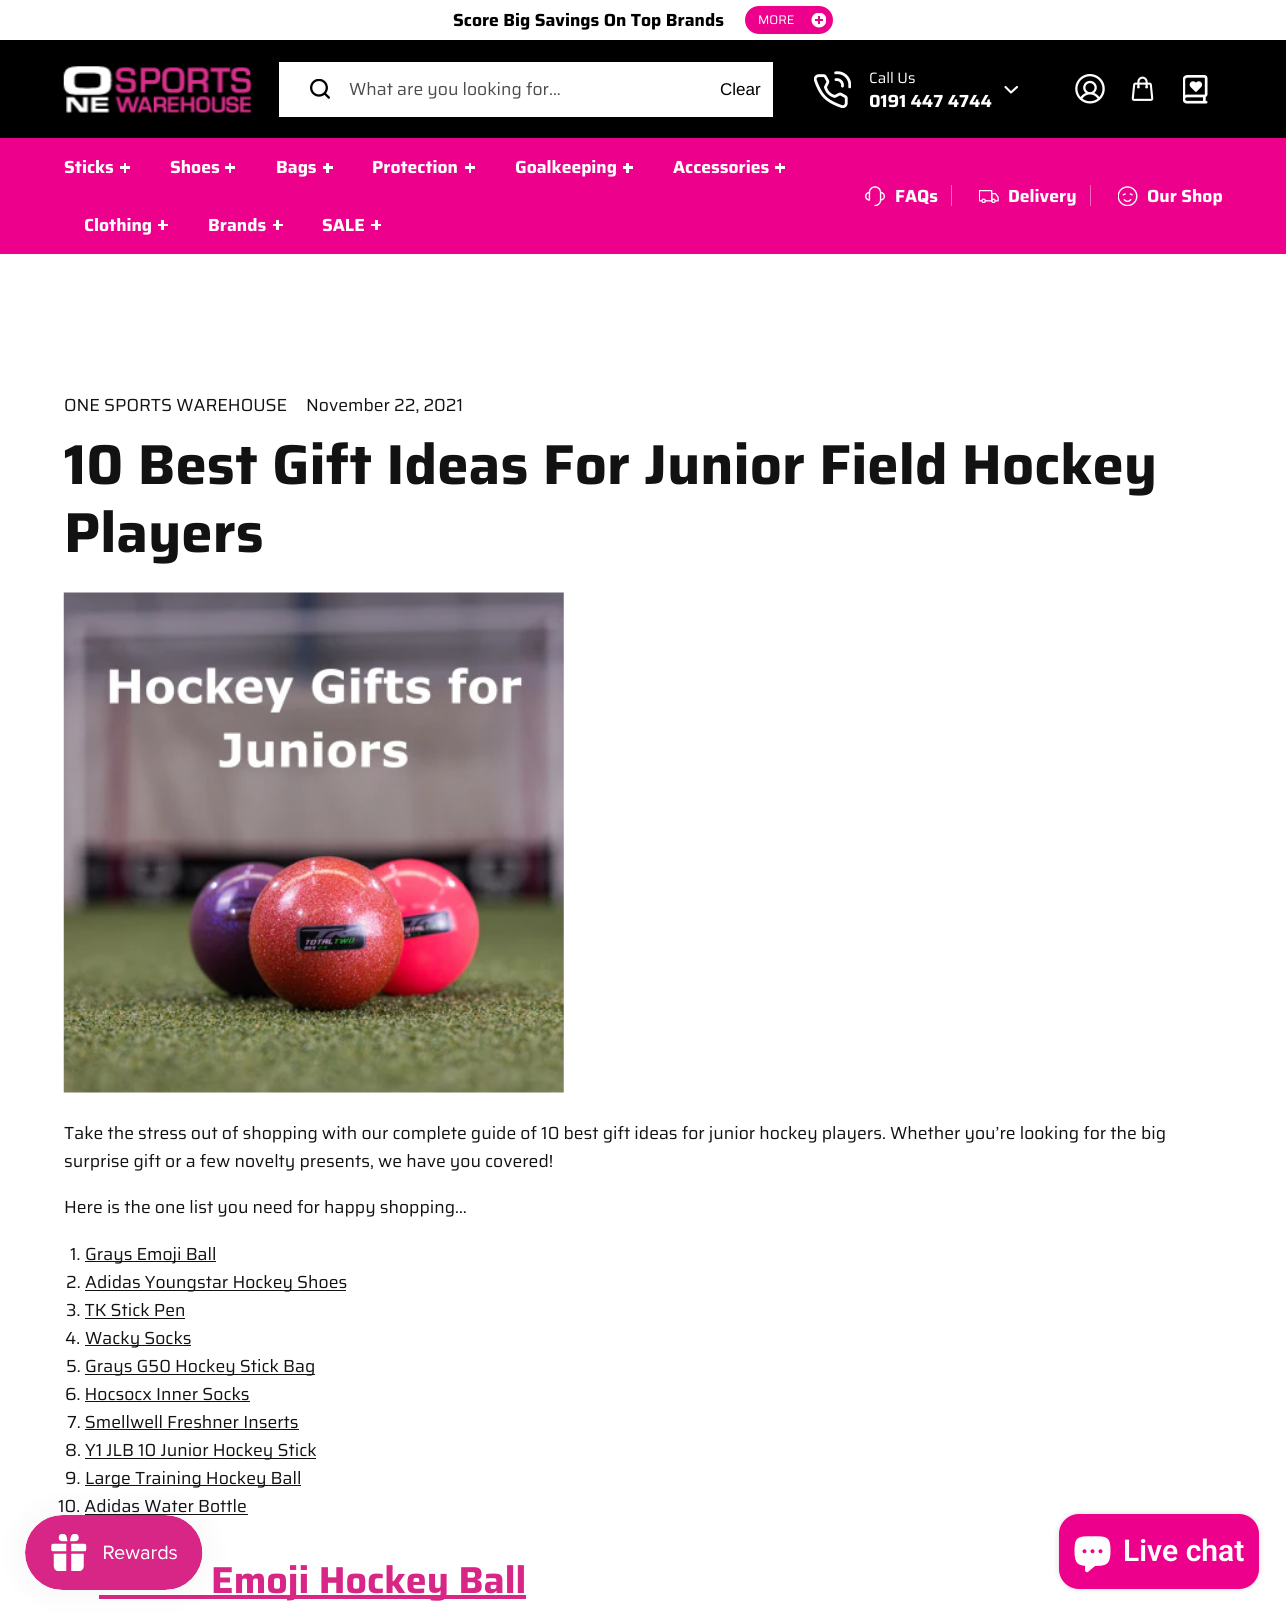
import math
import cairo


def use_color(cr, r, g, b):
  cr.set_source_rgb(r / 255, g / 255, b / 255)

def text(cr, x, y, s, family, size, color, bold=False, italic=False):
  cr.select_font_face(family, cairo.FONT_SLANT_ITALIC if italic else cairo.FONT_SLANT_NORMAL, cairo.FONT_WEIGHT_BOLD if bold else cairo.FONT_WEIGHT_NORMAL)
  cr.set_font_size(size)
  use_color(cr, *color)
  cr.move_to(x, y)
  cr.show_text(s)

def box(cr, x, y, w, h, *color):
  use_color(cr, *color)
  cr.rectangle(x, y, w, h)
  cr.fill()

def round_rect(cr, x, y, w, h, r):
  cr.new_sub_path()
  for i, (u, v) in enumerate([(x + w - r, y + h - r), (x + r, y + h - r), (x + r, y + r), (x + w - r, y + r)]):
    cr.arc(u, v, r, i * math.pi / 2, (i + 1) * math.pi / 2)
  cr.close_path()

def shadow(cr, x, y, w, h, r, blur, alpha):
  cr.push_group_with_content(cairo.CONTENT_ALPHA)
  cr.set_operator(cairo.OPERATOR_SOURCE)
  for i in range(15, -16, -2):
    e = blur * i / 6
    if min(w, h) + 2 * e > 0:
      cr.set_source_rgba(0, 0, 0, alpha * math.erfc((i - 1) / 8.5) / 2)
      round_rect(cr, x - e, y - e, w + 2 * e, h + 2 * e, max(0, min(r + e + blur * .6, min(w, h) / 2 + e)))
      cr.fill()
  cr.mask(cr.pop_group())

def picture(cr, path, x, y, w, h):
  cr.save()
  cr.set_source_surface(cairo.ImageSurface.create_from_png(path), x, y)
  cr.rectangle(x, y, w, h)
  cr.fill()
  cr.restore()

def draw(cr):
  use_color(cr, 255, 255, 255)
  cr.paint()
  use_color(cr, 236, 0, 140)
  round_rect(cr, 745, 6, 88, 28, 14)
  cr.fill()
  cr.save()
  cr.rectangle(811, 13, 15, 15)
  cr.clip()
  use_color(cr, 255, 255, 255)
  cr.arc(819, 20, 7.5, 0, 2 * math.pi)
  cr.fill()
  cr.restore()
  box(cr, 818, 16, 2, 8, 236, 0, 140)
  box(cr, 815, 19, 8, 2, 236, 0, 140)
  box(cr, 0, 40, 1286, 98, 0, 0, 0)
  picture(cr, "img_01.png", 63, 66, 189, 47)
  box(cr, 279, 62, 494, 55, 255, 255, 255)
  picture(cr, "img_02.png", 310, 79, 20, 20)
  picture(cr, "img_03.png", 814, 71, 37, 37)
  cr.new_path()
  cr.move_to(1017, 87)
  cr.line_to(1011, 92.5)
  cr.line_to(1005.5, 87)
  cr.set_line_width(2.1)
  cr.set_line_cap(cairo.LINE_CAP_ROUND)
  cr.set_line_join(cairo.LINE_JOIN_ROUND)
  cr.stroke()
  picture(cr, "img_04.png", 1075, 74, 30, 30)
  picture(cr, "img_05.png", 1131, 76, 23, 25)
  picture(cr, "img_06.png", 1183, 75, 25, 29)
  box(cr, 0, 138, 1286, 116, 236, 0, 140)
  box(cr, 120, 166, 10, 3, 255, 255, 255)
  box(cr, 124, 163, 2, 10, 255, 255, 255)
  box(cr, 225, 166, 10, 3, 255, 255, 255)
  box(cr, 229, 163, 2, 10, 255, 255, 255)
  box(cr, 323, 166, 10, 3, 255, 255, 255)
  box(cr, 326, 163, 3, 10, 255, 255, 255)
  box(cr, 465, 166, 10, 3, 255, 255, 255)
  box(cr, 469, 163, 2, 10, 255, 255, 255)
  box(cr, 623, 166, 10, 3, 255, 255, 255)
  box(cr, 626, 163, 3, 10, 255, 255, 255)
  box(cr, 775, 166, 10, 3, 255, 255, 255)
  box(cr, 779, 163, 2, 10, 255, 255, 255)
  box(cr, 158, 224, 10, 2, 255, 255, 255)
  box(cr, 161, 220, 3, 10, 255, 255, 255)
  box(cr, 273, 224, 10, 2, 255, 255, 255)
  box(cr, 276, 220, 3, 10, 255, 255, 255)
  box(cr, 371, 224, 10, 2, 255, 255, 255)
  box(cr, 375, 220, 3, 10, 255, 255, 255)
  picture(cr, "img_07.png", 865, 186, 20, 20)
  box(cr, 951, 185, 1, 21, 244, 102, 186)
  picture(cr, "img_08.png", 979, 190, 20, 13)
  box(cr, 1090, 185, 1, 21, 244, 102, 186)
  picture(cr, "img_09.png", 1118, 186, 20, 20)
  picture(cr, "img_10.png", 63, 592, 501, 501)
  box(cr, 85, 1261, 131, 1, 18, 18, 18)
  box(cr, 85, 1290, 261, 1, 18, 18, 18)
  box(cr, 85, 1318, 100, 1, 18, 18, 18)
  box(cr, 85, 1345, 106, 1, 18, 18, 18)
  box(cr, 85, 1374, 230, 1, 18, 18, 18)
  box(cr, 85, 1401, 165, 1, 18, 18, 18)
  box(cr, 85, 1429, 214, 1, 18, 18, 18)
  box(cr, 85, 1458, 231, 1, 18, 18, 18)
  box(cr, 85, 1485, 216, 1, 18, 18, 18)
  box(cr, 85, 1514, 163, 1, 18, 18, 18)
  box(cr, 99, 1595, 427, 4, 215, 38, 133)
  use_color(cr, 0, 0, 0)
  shadow(cr, 25, 1515, 178, 75, 37.5, 15.5, 0.05)
  picture(cr, "img_11.png", 25, 1515, 178, 75)
  shadow(cr, 1059, 1514, 200, 75, 20, 3, 0.15)
  use_color(cr, 236, 0, 140)
  round_rect(cr, 1059, 1514, 200, 75, 20)
  cr.fill()
  picture(cr, "img_12.png", 1074, 1536, 37, 37)
  text(cr, 453, 26, "Score Big Savings On Top Brands", "Saira", 17.5, (0, 0, 0), bold=True)
  text(cr, 758, 24, "MORE", "Saira", 12.5, (255, 255, 255))
  text(cr, 349, 95, "What are you looking for...", "Saira", 17.5, (77, 77, 77))
  text(cr, 720, 95, "Clear", "Liberation Sans", 17, (0, 0, 0))
  text(cr, 869, 83, "Call Us", "Saira", 15, (255, 255, 255))
  text(cr, 869, 107, "0191 447 4744", "Saira", 17.5, (255, 255, 255), bold=True)
  text(cr, 64, 173, "Sticks", "Saira", 17.5, (255, 255, 255), bold=True)
  text(cr, 170, 173, "Shoes", "Saira", 17.5, (255, 255, 255), bold=True)
  text(cr, 276, 173, "Bags", "Saira", 17.5, (255, 255, 255), bold=True)
  text(cr, 372, 173, "Protection", "Saira", 17.5, (255, 255, 255), bold=True)
  text(cr, 515, 173, "Goalkeeping", "Saira", 17.5, (255, 255, 255), bold=True)
  text(cr, 673, 173, "Accessories", "Saira", 17.5, (255, 255, 255), bold=True)
  text(cr, 84, 231, "Clothing", "Saira", 17.5, (255, 255, 255), bold=True)
  text(cr, 208, 231, "Brands", "Saira", 17.5, (255, 255, 255), bold=True)
  text(cr, 322, 231, "SALE", "Saira", 17.5, (255, 255, 255), bold=True)
  text(cr, 895, 202, "FAQs", "Saira", 17.5, (255, 255, 255), bold=True)
  text(cr, 1008, 202, "Delivery", "Saira", 17.5, (255, 255, 255), bold=True)
  text(cr, 1147, 202, "Our Shop", "Saira", 17.5, (255, 255, 255), bold=True)
  text(cr, 64, 411, "ONE SPORTS WAREHOUSE", "Saira", 17.5, (18, 18, 18))
  text(cr, 306, 411, "November 22, 2021", "Saira", 17.5, (18, 18, 18))
  text(cr, 64, 484, "10 Best Gift Ideas For Junior Field Hockey", "Saira", 56.25, (18, 18, 18), bold=True)
  text(cr, 64, 552, "Players", "Saira", 56.25, (18, 18, 18), bold=True)
  text(cr, 64, 1139, "Take the stress out of shopping with our complete guide of 10 best gift ideas for junior hockey players. Whether you’re looking for the big", "Saira", 17.5, (18, 18, 18))
  text(cr, 64, 1167, "surprise gift or a few novelty presents, we have you covered!", "Saira", 17.5, (18, 18, 18))
  text(cr, 64, 1213, "Here is the one list you need for happy shopping…", "Saira", 17.5, (18, 18, 18))
  text(cr, 70, 1260, "1.", "Saira", 17.5, (18, 18, 18))
  text(cr, 85, 1260, "Grays Emoji Ball", "Saira", 17.5, (18, 18, 18))
  text(cr, 66, 1288, "2.", "Saira", 17.5, (18, 18, 18))
  text(cr, 85, 1288, "Adidas Youngstar Hockey Shoes", "Saira", 17.5, (18, 18, 18))
  text(cr, 66, 1316, "3. TK Stick Pen", "Saira", 17.5, (18, 18, 18))
  text(cr, 65, 1344, "4.", "Saira", 17.5, (18, 18, 18))
  text(cr, 85, 1344, "Wacky Socks", "Saira", 17.5, (18, 18, 18))
  text(cr, 66, 1372, "5.", "Saira", 17.5, (18, 18, 18))
  text(cr, 85, 1372, "Grays G50 Hockey Stick Bag", "Saira", 17.5, (18, 18, 18))
  text(cr, 65, 1400, "6. Hocsocx Inner Socks", "Saira", 17.5, (18, 18, 18))
  text(cr, 67, 1428, "7. Smellwell Freshner Inserts", "Saira", 17.5, (18, 18, 18))
  text(cr, 65, 1456, "8.", "Saira", 17.5, (18, 18, 18))
  text(cr, 85, 1456, "Y1 JLB 10 Junior Hockey Stick", "Saira", 17.5, (18, 18, 18))
  text(cr, 65, 1484, "9.", "Saira", 17.5, (18, 18, 18))
  text(cr, 85, 1484, "Large Training Hockey Ball", "Saira", 17.5, (18, 18, 18))
  text(cr, 58, 1512, "10. Adidas Water Bottle", "Saira", 17.5, (18, 18, 18))
  text(cr, 211, 1593, "Emoji Hockey Ball", "Saira", 37.5, (215, 38, 133), bold=True)
  text(cr, 1123, 1561, "Live chat", "Roboto SemiBold", 30, (255, 255, 255))


surface = cairo.ImageSurface(cairo.FORMAT_RGB24, 1286, 1614)
cr = cairo.Context(surface)
options = cairo.FontOptions()
options.set_hint_metrics(cairo.HINT_METRICS_OFF)
options.set_hint_style(cairo.HINT_STYLE_NONE)
cr.set_font_options(options)
cr.set_miter_limit(4)
draw(cr)
surface.write_to_png("out.png")
